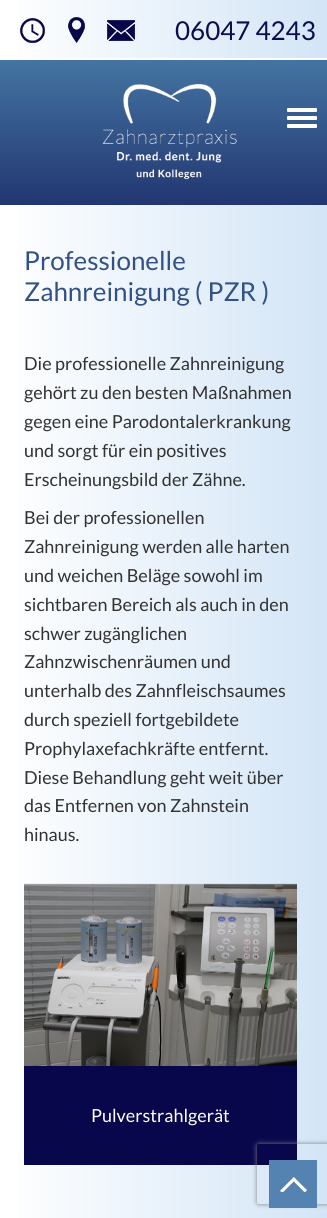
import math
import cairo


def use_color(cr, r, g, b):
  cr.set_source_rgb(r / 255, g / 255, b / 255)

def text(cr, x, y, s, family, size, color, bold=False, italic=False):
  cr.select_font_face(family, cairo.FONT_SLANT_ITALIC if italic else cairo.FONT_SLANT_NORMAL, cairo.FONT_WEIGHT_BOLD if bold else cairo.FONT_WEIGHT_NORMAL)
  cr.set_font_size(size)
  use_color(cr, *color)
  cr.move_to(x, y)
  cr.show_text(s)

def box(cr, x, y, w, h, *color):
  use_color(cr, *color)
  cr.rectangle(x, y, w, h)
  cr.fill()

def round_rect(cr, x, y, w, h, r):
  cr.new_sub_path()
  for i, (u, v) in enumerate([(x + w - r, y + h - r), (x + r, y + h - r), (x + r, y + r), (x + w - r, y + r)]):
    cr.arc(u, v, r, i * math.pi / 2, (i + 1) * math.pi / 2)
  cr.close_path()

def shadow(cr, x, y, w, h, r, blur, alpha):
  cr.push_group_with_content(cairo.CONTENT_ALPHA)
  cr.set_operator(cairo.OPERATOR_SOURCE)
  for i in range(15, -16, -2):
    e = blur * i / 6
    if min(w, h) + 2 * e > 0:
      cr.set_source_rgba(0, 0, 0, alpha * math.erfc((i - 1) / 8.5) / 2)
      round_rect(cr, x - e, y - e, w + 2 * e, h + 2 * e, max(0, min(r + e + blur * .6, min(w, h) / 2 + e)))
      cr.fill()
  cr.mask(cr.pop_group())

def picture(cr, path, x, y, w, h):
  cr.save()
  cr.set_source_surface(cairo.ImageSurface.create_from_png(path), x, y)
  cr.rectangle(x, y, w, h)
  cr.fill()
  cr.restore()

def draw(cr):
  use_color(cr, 255, 255, 255)
  cr.paint()
  gradient = cairo.LinearGradient(327, 29, 0, 29)
  gradient.add_color_stop_rgba(0, 0.827, 0.898, 0.965, 1)
  gradient.add_color_stop_rgba(1, 1, 1, 1, 1)
  cr.set_source(gradient)
  cr.rectangle(19, 0, 308, 58)
  cr.fill()
  picture(cr, "img_01.png", 20, 18, 25, 25)
  picture(cr, "img_02.png", 68, 17, 17, 26)
  picture(cr, "img_03.png", 107, 20, 28, 21)
  gradient = cairo.LinearGradient(164, 205, 164, 60)
  gradient.add_color_stop_rgba(0, 0.133, 0.212, 0.443, 1)
  gradient.add_color_stop_rgba(1, 0.267, 0.455, 0.635, 1)
  cr.set_source(gradient)
  cr.rectangle(0, 60, 327, 145)
  cr.fill()
  picture(cr, "img_04.png", 102, 84, 135, 96)
  use_color(cr, 255, 255, 255)
  round_rect(cr, 287, 108, 30, 4, 1)
  cr.fill()
  round_rect(cr, 287, 116, 30, 4, 1)
  cr.fill()
  round_rect(cr, 287, 124, 30, 4, 1)
  cr.fill()
  gradient = cairo.LinearGradient(327, 1057, 0, 1057)
  gradient.add_color_stop_rgba(0, 0.827, 0.898, 0.965, 1)
  gradient.add_color_stop_rgba(1, 1, 1, 1, 1)
  cr.set_source(gradient)
  cr.rectangle(19, 205, 308, 1013)
  cr.fill()
  picture(cr, "img_05.png", 24, 883, 273, 183)
  box(cr, 24, 1066, 273, 99, 9, 7, 76)
  cr.save()
  cr.set_fill_rule(cairo.FILL_RULE_EVEN_ODD)
  cr.new_path()
  cr.move_to(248, 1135)
  cr.line_to(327, 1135)
  cr.line_to(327, 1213)
  cr.line_to(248, 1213)
  cr.close_path()
  cr.move_to(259, 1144)
  cr.line_to(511, 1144)
  cr.curve_to(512, 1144, 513, 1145, 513, 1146)
  cr.line_to(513, 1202)
  cr.curve_to(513, 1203, 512, 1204, 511, 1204)
  cr.line_to(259, 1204)
  cr.curve_to(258, 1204, 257, 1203, 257, 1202)
  cr.line_to(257, 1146)
  cr.curve_to(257, 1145, 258, 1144, 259, 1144)
  cr.close_path()
  cr.clip()
  use_color(cr, 128, 128, 128)
  shadow(cr, 257, 1144, 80, 60, 2, 2.5, 1)
  cr.restore()
  box(cr, 269, 1160, 48, 48, 85, 131, 177)
  picture(cr, "img_06.png", 280, 1177, 27, 15)
  text(cr, 175, 40, "06047 4243", "Lato", 26, (14, 12, 80))
  text(cr, 24, 270, "Professionelle", "Lato", 26, (49, 81, 135))
  text(cr, 24, 301, "Zahnreinigung ( PZR )", "Lato", 26, (49, 81, 135))
  text(cr, 24, 370, "Die professionelle Zahnreinigung", "Lato", 18, (50, 50, 50))
  text(cr, 24, 399, "gehört zu den besten Maßnahmen", "Lato", 18, (50, 50, 50))
  text(cr, 24, 428, "gegen eine Parodontalerkrankung", "Lato", 18, (50, 50, 50))
  text(cr, 24, 457, "und sorgt für ein positives", "Lato", 18, (50, 50, 50))
  text(cr, 24, 486, "Erscheinungsbild der Zähne.", "Lato", 18, (50, 50, 50))
  text(cr, 24, 524, "Bei der professionellen", "Lato", 18, (50, 50, 50))
  text(cr, 24, 553, "Zahnreinigung werden alle harten", "Lato", 18, (50, 50, 50))
  text(cr, 24, 582, "und weichen Beläge sowohl im", "Lato", 18, (50, 50, 50))
  text(cr, 24, 611, "sichtbaren Bereich als auch in den", "Lato", 18, (50, 50, 50))
  text(cr, 24, 640, "schwer zugänglichen", "Lato", 18, (50, 50, 50))
  text(cr, 24, 668, "Zahnzwischenräumen und", "Lato", 18, (50, 50, 50))
  text(cr, 24, 697, "unterhalb des Zahnfleischsaumes", "Lato", 18, (50, 50, 50))
  text(cr, 24, 726, "durch speziell fortgebildete", "Lato", 18, (50, 50, 50))
  text(cr, 24, 755, "Prophylaxefachkräfte entfernt.", "Lato", 18, (50, 50, 50))
  text(cr, 24, 784, "Diese Behandlung geht weit über", "Lato", 18, (50, 50, 50))
  text(cr, 24, 812, "das Entfernen von Zahnstein", "Lato", 18, (50, 50, 50))
  text(cr, 24, 841, "hinaus.", "Lato", 18, (50, 50, 50))
  text(cr, 91, 1122, "Pulverstrahlgerät", "Lato", 18, (255, 255, 255))


surface = cairo.ImageSurface(cairo.FORMAT_RGB24, 327, 1218)
cr = cairo.Context(surface)
options = cairo.FontOptions()
options.set_hint_metrics(cairo.HINT_METRICS_OFF)
options.set_hint_style(cairo.HINT_STYLE_NONE)
cr.set_font_options(options)
cr.set_miter_limit(4)
draw(cr)
surface.write_to_png("out.png")
